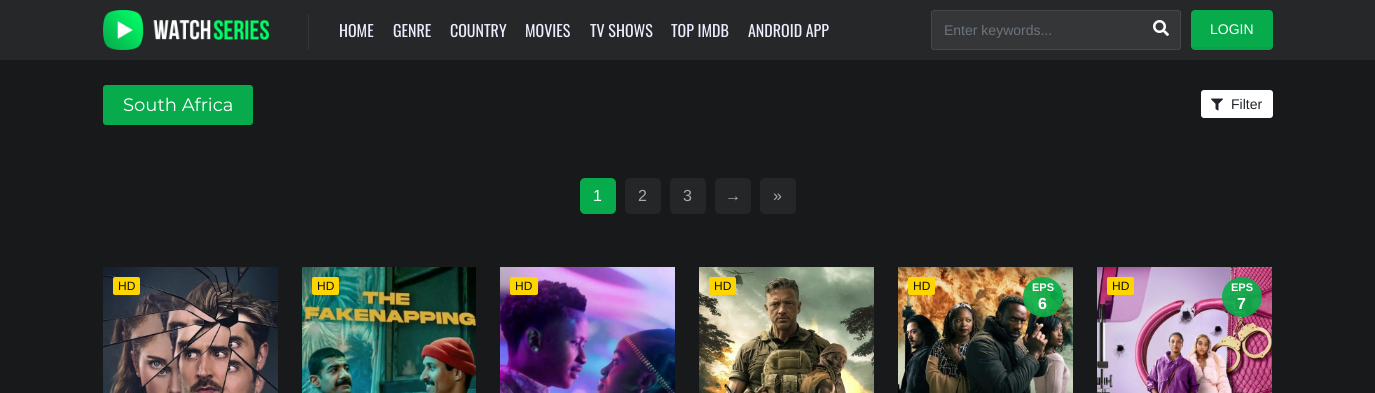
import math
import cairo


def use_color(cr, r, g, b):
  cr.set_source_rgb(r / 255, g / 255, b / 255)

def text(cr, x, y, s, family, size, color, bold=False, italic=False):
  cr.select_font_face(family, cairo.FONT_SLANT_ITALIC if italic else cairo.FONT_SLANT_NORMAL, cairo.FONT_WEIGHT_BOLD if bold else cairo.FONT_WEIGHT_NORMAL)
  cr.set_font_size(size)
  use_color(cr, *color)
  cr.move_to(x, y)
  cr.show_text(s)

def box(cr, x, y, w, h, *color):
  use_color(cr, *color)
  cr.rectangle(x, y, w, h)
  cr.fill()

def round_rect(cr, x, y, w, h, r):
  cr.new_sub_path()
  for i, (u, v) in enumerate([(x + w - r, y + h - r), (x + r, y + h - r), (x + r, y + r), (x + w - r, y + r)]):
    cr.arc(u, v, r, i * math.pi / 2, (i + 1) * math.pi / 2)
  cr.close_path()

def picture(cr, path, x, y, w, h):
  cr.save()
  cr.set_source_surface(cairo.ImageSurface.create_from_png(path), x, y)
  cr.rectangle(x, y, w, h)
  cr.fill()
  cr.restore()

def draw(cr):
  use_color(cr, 24, 25, 26)
  cr.paint()
  box(cr, 0, 0, 1375, 60, 38, 39, 40)
  picture(cr, "img_01.png", 103, 10, 166, 40)
  box(cr, 308, 14, 1, 36, 53, 54, 55)
  round_rect(cr, 931.5, 10.5, 249, 39, 2.5)
  cr.fill_preserve()
  use_color(cr, 69, 70, 71)
  cr.set_line_width(1)
  cr.stroke()
  picture(cr, "img_02.png", 1153, 20, 16, 16)
  use_color(cr, 8, 171, 75)
  round_rect(cr, 1191, 10, 82, 40, 4)
  cr.fill()
  cr.set_source_rgba(0, 0, 0, 0.05)
  cr.new_path()
  cr.move_to(1195, 50)
  cr.line_to(1269, 50)
  cr.curve_to(1271, 50, 1272, 49, 1273, 47)
  cr.line_to(1191, 47)
  cr.curve_to(1192, 49, 1193, 50, 1195, 50)
  cr.close_path()
  cr.fill()
  use_color(cr, 8, 171, 75)
  round_rect(cr, 103, 85, 150, 40, 3)
  cr.fill()
  use_color(cr, 255, 255, 255)
  round_rect(cr, 1201, 90, 72, 28, 3)
  cr.fill()
  picture(cr, "img_03.png", 1211, 98, 12, 13)
  use_color(cr, 8, 171, 75)
  round_rect(cr, 580, 178, 36, 36, 5)
  cr.fill()
  use_color(cr, 37, 38, 39)
  round_rect(cr, 625, 178, 36, 36, 5)
  cr.fill()
  round_rect(cr, 670, 178, 36, 36, 5)
  cr.fill()
  round_rect(cr, 715, 178, 36, 36, 5)
  cr.fill()
  round_rect(cr, 760, 178, 36, 36, 5)
  cr.fill()
  picture(cr, "img_04.png", 103, 267, 175, 126)
  use_color(cr, 255, 213, 0)
  round_rect(cr, 113, 277, 27, 18, 2)
  cr.fill()
  picture(cr, "img_05.png", 302, 267, 174, 126)
  round_rect(cr, 312, 277, 27, 18, 2)
  cr.fill()
  picture(cr, "img_06.png", 500, 267, 175, 126)
  round_rect(cr, 510, 277, 28, 18, 2)
  cr.fill()
  picture(cr, "img_07.png", 699, 267, 175, 126)
  round_rect(cr, 709, 277, 27, 18, 2)
  cr.fill()
  picture(cr, "img_08.png", 898, 267, 175, 126)
  round_rect(cr, 908, 277, 27, 18, 2)
  cr.fill()
  cr.set_source_rgba(0.031, 0.694, 0.294, 0.9)
  cr.arc(1043, 297, 20, 0, 2 * math.pi)
  cr.fill()
  picture(cr, "img_09.png", 1097, 267, 175, 126)
  use_color(cr, 255, 213, 0)
  round_rect(cr, 1107, 277, 27, 18, 2)
  cr.fill()
  cr.set_source_rgba(0.031, 0.694, 0.294, 0.9)
  cr.arc(1242, 297, 20, 0, 2 * math.pi)
  cr.fill()
  text(cr, 339, 37, "HOME", "Oswald", 16, (236, 236, 255))
  text(cr, 393, 37, "GENRE", "Oswald", 16, (236, 236, 255))
  text(cr, 450, 37, "COUNTRY", "Oswald", 16, (236, 236, 255))
  text(cr, 525, 37, "MOVIES", "Oswald", 16, (236, 236, 255))
  text(cr, 590, 37, "TV SHOWS", "Oswald", 16, (236, 236, 255))
  text(cr, 671, 37, "TOP IMDB", "Oswald", 16, (236, 236, 255))
  text(cr, 748, 37, "ANDROID APP", "Oswald", 16, (236, 236, 255))
  text(cr, 944, 35, "Enter keywords...", "Liberation Sans", 14, (108, 117, 125))
  text(cr, 1210, 34, "LOGIN", "Liberation Sans", 14, (255, 255, 255))
  text(cr, 123, 111, "South Africa", "Montserrat", 18, (255, 255, 255))
  text(cr, 1231, 109, "Filter", "Liberation Sans", 14, (33, 37, 41))
  text(cr, 593, 201, "1", "Liberation Sans", 16, (255, 255, 255))
  text(cr, 638, 201, "2", "Liberation Sans", 16, (170, 170, 170))
  text(cr, 683, 201, "3", "Liberation Sans", 16, (170, 170, 170))
  text(cr, 725, 201, "→", "Liberation Sans", 16, (170, 170, 170))
  text(cr, 773, 201, "»", "Liberation Sans", 16, (170, 170, 170))
  text(cr, 118, 290, "HD", "Liberation Sans", 12, (17, 17, 17))
  text(cr, 317, 290, "HD", "Liberation Sans", 12, (17, 17, 17))
  text(cr, 515, 290, "HD", "Liberation Sans", 12, (17, 17, 17))
  text(cr, 714, 290, "HD", "Liberation Sans", 12, (17, 17, 17))
  text(cr, 913, 290, "HD", "Liberation Sans", 12, (17, 17, 17))
  text(cr, 1032, 291, "EPS", "Liberation Sans", 11, (255, 255, 255), bold=True)
  text(cr, 1038, 309, "6", "Liberation Sans", 16, (255, 255, 255), bold=True)
  text(cr, 1112, 290, "HD", "Liberation Sans", 12, (17, 17, 17))
  text(cr, 1231, 291, "EPS", "Liberation Sans", 11, (255, 255, 255), bold=True)
  text(cr, 1237, 309, "7", "Liberation Sans", 16, (255, 255, 255), bold=True)


surface = cairo.ImageSurface(cairo.FORMAT_RGB24, 1375, 393)
cr = cairo.Context(surface)
options = cairo.FontOptions()
options.set_hint_metrics(cairo.HINT_METRICS_OFF)
options.set_hint_style(cairo.HINT_STYLE_NONE)
cr.set_font_options(options)
cr.set_miter_limit(4)
draw(cr)
surface.write_to_png("out.png")
